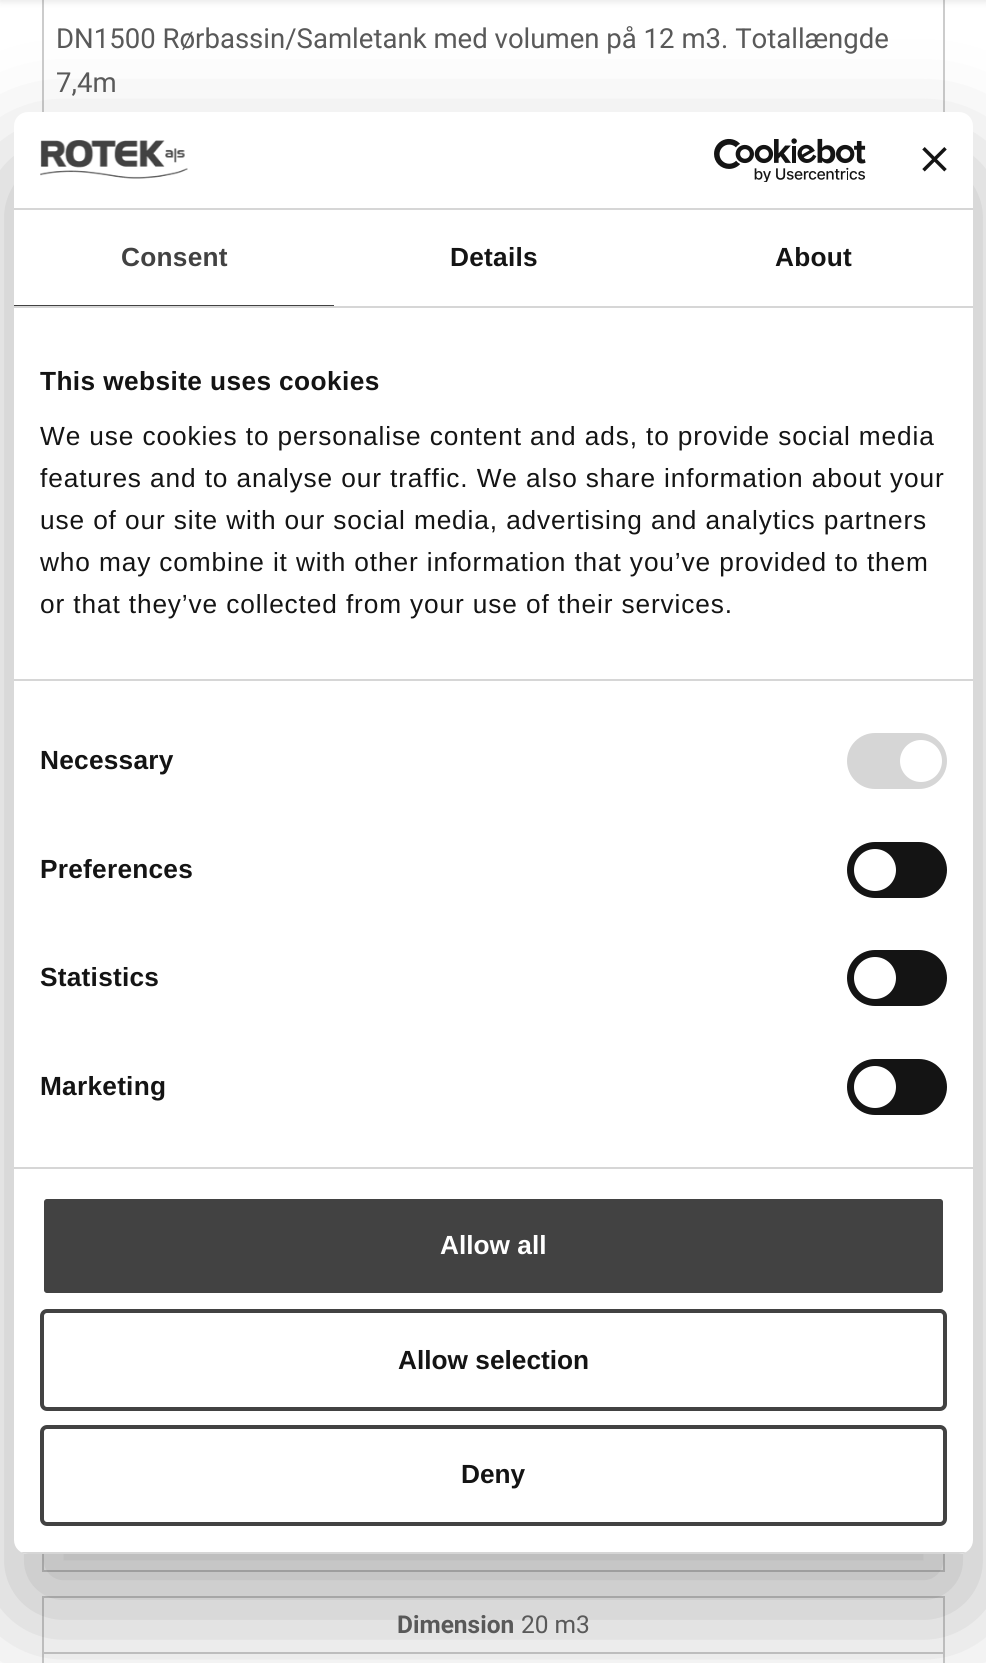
import math
import cairo


def use_color(cr, r, g, b):
  cr.set_source_rgb(r / 255, g / 255, b / 255)

def text(cr, x, y, s, family, size, color, bold=False, italic=False):
  cr.select_font_face(family, cairo.FONT_SLANT_ITALIC if italic else cairo.FONT_SLANT_NORMAL, cairo.FONT_WEIGHT_BOLD if bold else cairo.FONT_WEIGHT_NORMAL)
  cr.set_font_size(size)
  use_color(cr, *color)
  cr.move_to(x, y)
  cr.show_text(s)

def spaced_text(cr, x, y, s, letter, word):
  cr.move_to(x, y)
  for ch in s:
    cr.show_text(ch)
    cr.rel_move_to(letter + word * (ch == ' '), 0)

def box(cr, x, y, w, h, *color):
  use_color(cr, *color)
  cr.rectangle(x, y, w, h)
  cr.fill()

def round_rect(cr, x, y, w, h, r):
  cr.new_sub_path()
  for i, (u, v) in enumerate([(x + w - r, y + h - r), (x + r, y + h - r), (x + r, y + r), (x + w - r, y + r)]):
    cr.arc(u, v, r, i * math.pi / 2, (i + 1) * math.pi / 2)
  cr.close_path()

def shadow(cr, x, y, w, h, r, blur, alpha):
  cr.push_group_with_content(cairo.CONTENT_ALPHA)
  cr.set_operator(cairo.OPERATOR_SOURCE)
  for i in range(15, -16, -2):
    e = blur * i / 6
    if min(w, h) + 2 * e > 0:
      cr.set_source_rgba(0, 0, 0, alpha * math.erfc((i - 1) / 8.5) / 2)
      round_rect(cr, x - e, y - e, w + 2 * e, h + 2 * e, max(0, min(r + e + blur * .6, min(w, h) / 2 + e)))
      cr.fill()
  cr.mask(cr.pop_group())

def picture(cr, path, x, y, w, h):
  cr.save()
  cr.set_source_surface(cairo.ImageSurface.create_from_png(path), x, y)
  cr.rectangle(x, y, w, h)
  cr.fill()
  cr.restore()

def draw(cr):
  use_color(cr, 255, 255, 255)
  cr.paint()
  box(cr, 943, 0, 2, 112, 204, 204, 204)
  box(cr, 42, 0, 2, 112, 204, 204, 204)
  use_color(cr, 0, 0, 0)
  shadow(cr, 0, -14, 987, 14, 0, 4.5, 0.14)
  box(cr, 943, 1554, 2, 18, 204, 204, 204)
  box(cr, 42, 1570, 903, 2, 204, 204, 204)
  box(cr, 42, 1554, 2, 16, 204, 204, 204)
  box(cr, 943, 1596, 2, 67, 204, 204, 204)
  box(cr, 42, 1596, 901, 2, 204, 204, 204)
  box(cr, 42, 1596, 2, 56, 204, 204, 204)
  box(cr, 42, 1652, 901, 2, 204, 204, 204)
  box(cr, 42, 1652, 2, 11, 204, 204, 204)
  use_color(cr, 0, 0, 0)
  shadow(cr, 14, 168, 959, 1442, 14, 59.5, 0.3)
  use_color(cr, 255, 255, 255)
  round_rect(cr, 14, 112, 959, 1442, 14)
  cr.fill()
  box(cr, 14, 208, 959, 2, 214, 214, 214)
  picture(cr, "img_01.png", 40, 140, 148, 39)
  picture(cr, "img_02.png", 714, 138, 152, 44)
  picture(cr, "img_03.png", 922, 147, 25, 25)
  box(cr, 14, 306, 959, 2, 214, 214, 214)
  box(cr, 14, 305, 320, 1, 66, 66, 66)
  box(cr, 14, 679, 959, 2, 214, 214, 214)
  box(cr, 14, 1167, 959, 2, 214, 214, 214)
  round_rect(cr, 847, 733, 100, 56, 28)
  cr.fill()
  use_color(cr, 255, 255, 255)
  cr.arc(921, 761, 21, 0, 2 * math.pi)
  cr.fill()
  use_color(cr, 20, 20, 20)
  round_rect(cr, 847, 842, 100, 56, 28)
  cr.fill()
  use_color(cr, 255, 255, 255)
  cr.arc(875, 870, 21, 0, 2 * math.pi)
  cr.fill()
  use_color(cr, 20, 20, 20)
  round_rect(cr, 847, 950, 100, 56, 28)
  cr.fill()
  use_color(cr, 255, 255, 255)
  cr.arc(875, 978, 21, 0, 2 * math.pi)
  cr.fill()
  use_color(cr, 20, 20, 20)
  round_rect(cr, 847, 1059, 100, 56, 28)
  cr.fill()
  use_color(cr, 255, 255, 255)
  cr.arc(875, 1087, 21, 0, 2 * math.pi)
  cr.fill()
  cr.save()
  round_rect(cr, 14, 112, 959, 1442, 14)
  cr.clip()
  box(cr, 14, 1552, 959, 2, 214, 214, 214)
  cr.restore()
  use_color(cr, 66, 66, 66)
  round_rect(cr, 42, 1197, 903, 98, 5)
  cr.fill_preserve()
  use_color(cr, 255, 255, 255)
  cr.set_line_width(4)
  cr.stroke()
  round_rect(cr, 42, 1311, 903, 98, 5)
  use_color(cr, 66, 66, 66)
  cr.stroke()
  round_rect(cr, 42, 1427, 903, 97, 5)
  cr.stroke()
  text(cr, 56, 48, "DN1500 Rørbassin/Samletank med volumen på 12 m3. Totallængde", "Roboto", 27.55, (89, 89, 89))
  text(cr, 56, 92, "7,4m", "Roboto", 27.55, (89, 89, 89))
  text(cr, 397, 1633, "Dimension", "Roboto", 24.5, (89, 89, 89), bold=True)
  text(cr, 521, 1633, "20 m3", "Roboto", 24.5, (89, 89, 89))
  cr.select_font_face("Liberation Sans", cairo.FONT_SLANT_NORMAL, cairo.FONT_WEIGHT_BOLD)
  cr.set_font_size(26.25)
  use_color(cr, 66, 66, 66)
  spaced_text(cr, 121, 266, "Consent", 0.25, 0)
  use_color(cr, 20, 20, 20)
  spaced_text(cr, 450, 266, "Details", 0.25, 0)
  spaced_text(cr, 775, 266, "About", 0.25, 0)
  spaced_text(cr, 40, 390, "This website uses cookies", 0.4, 0)
  cr.select_font_face("Liberation Sans")
  spaced_text(cr, 40, 445, "We use cookies to personalise content and ads, to provide social media", 0.88, 0)
  spaced_text(cr, 40, 487, "features and to analyse our traffic. We also share information about your", 0.88, 0)
  spaced_text(cr, 40, 529, "use of our site with our social media, advertising and analytics partners", 0.88, 0)
  spaced_text(cr, 40, 571, "who may combine it with other information that you’ve provided to them", 0.88, 0)
  spaced_text(cr, 40, 613, "or that they’ve collected from your use of their services.", 0.88, 0)
  cr.select_font_face("Liberation Sans", cairo.FONT_SLANT_NORMAL, cairo.FONT_WEIGHT_BOLD)
  spaced_text(cr, 40, 769, "Necessary", 0.25, 0)
  spaced_text(cr, 40, 878, "Preferences", 0.25, 0)
  spaced_text(cr, 40, 986, "Statistics", 0.25, 0)
  spaced_text(cr, 40, 1095, "Marketing", 0.25, 0)
  text(cr, 440, 1254, "Allow all", "Liberation Sans", 26.25, (255, 255, 255), bold=True)
  text(cr, 398, 1369, "Allow selection", "Liberation Sans", 26.25, (20, 20, 20), bold=True)
  text(cr, 461, 1483, "Deny", "Liberation Sans", 26.25, (20, 20, 20), bold=True)


surface = cairo.ImageSurface(cairo.FORMAT_RGB24, 986, 1663)
cr = cairo.Context(surface)
options = cairo.FontOptions()
options.set_hint_metrics(cairo.HINT_METRICS_OFF)
options.set_hint_style(cairo.HINT_STYLE_NONE)
cr.set_font_options(options)
cr.set_miter_limit(4)
draw(cr)
surface.write_to_png("out.png")
